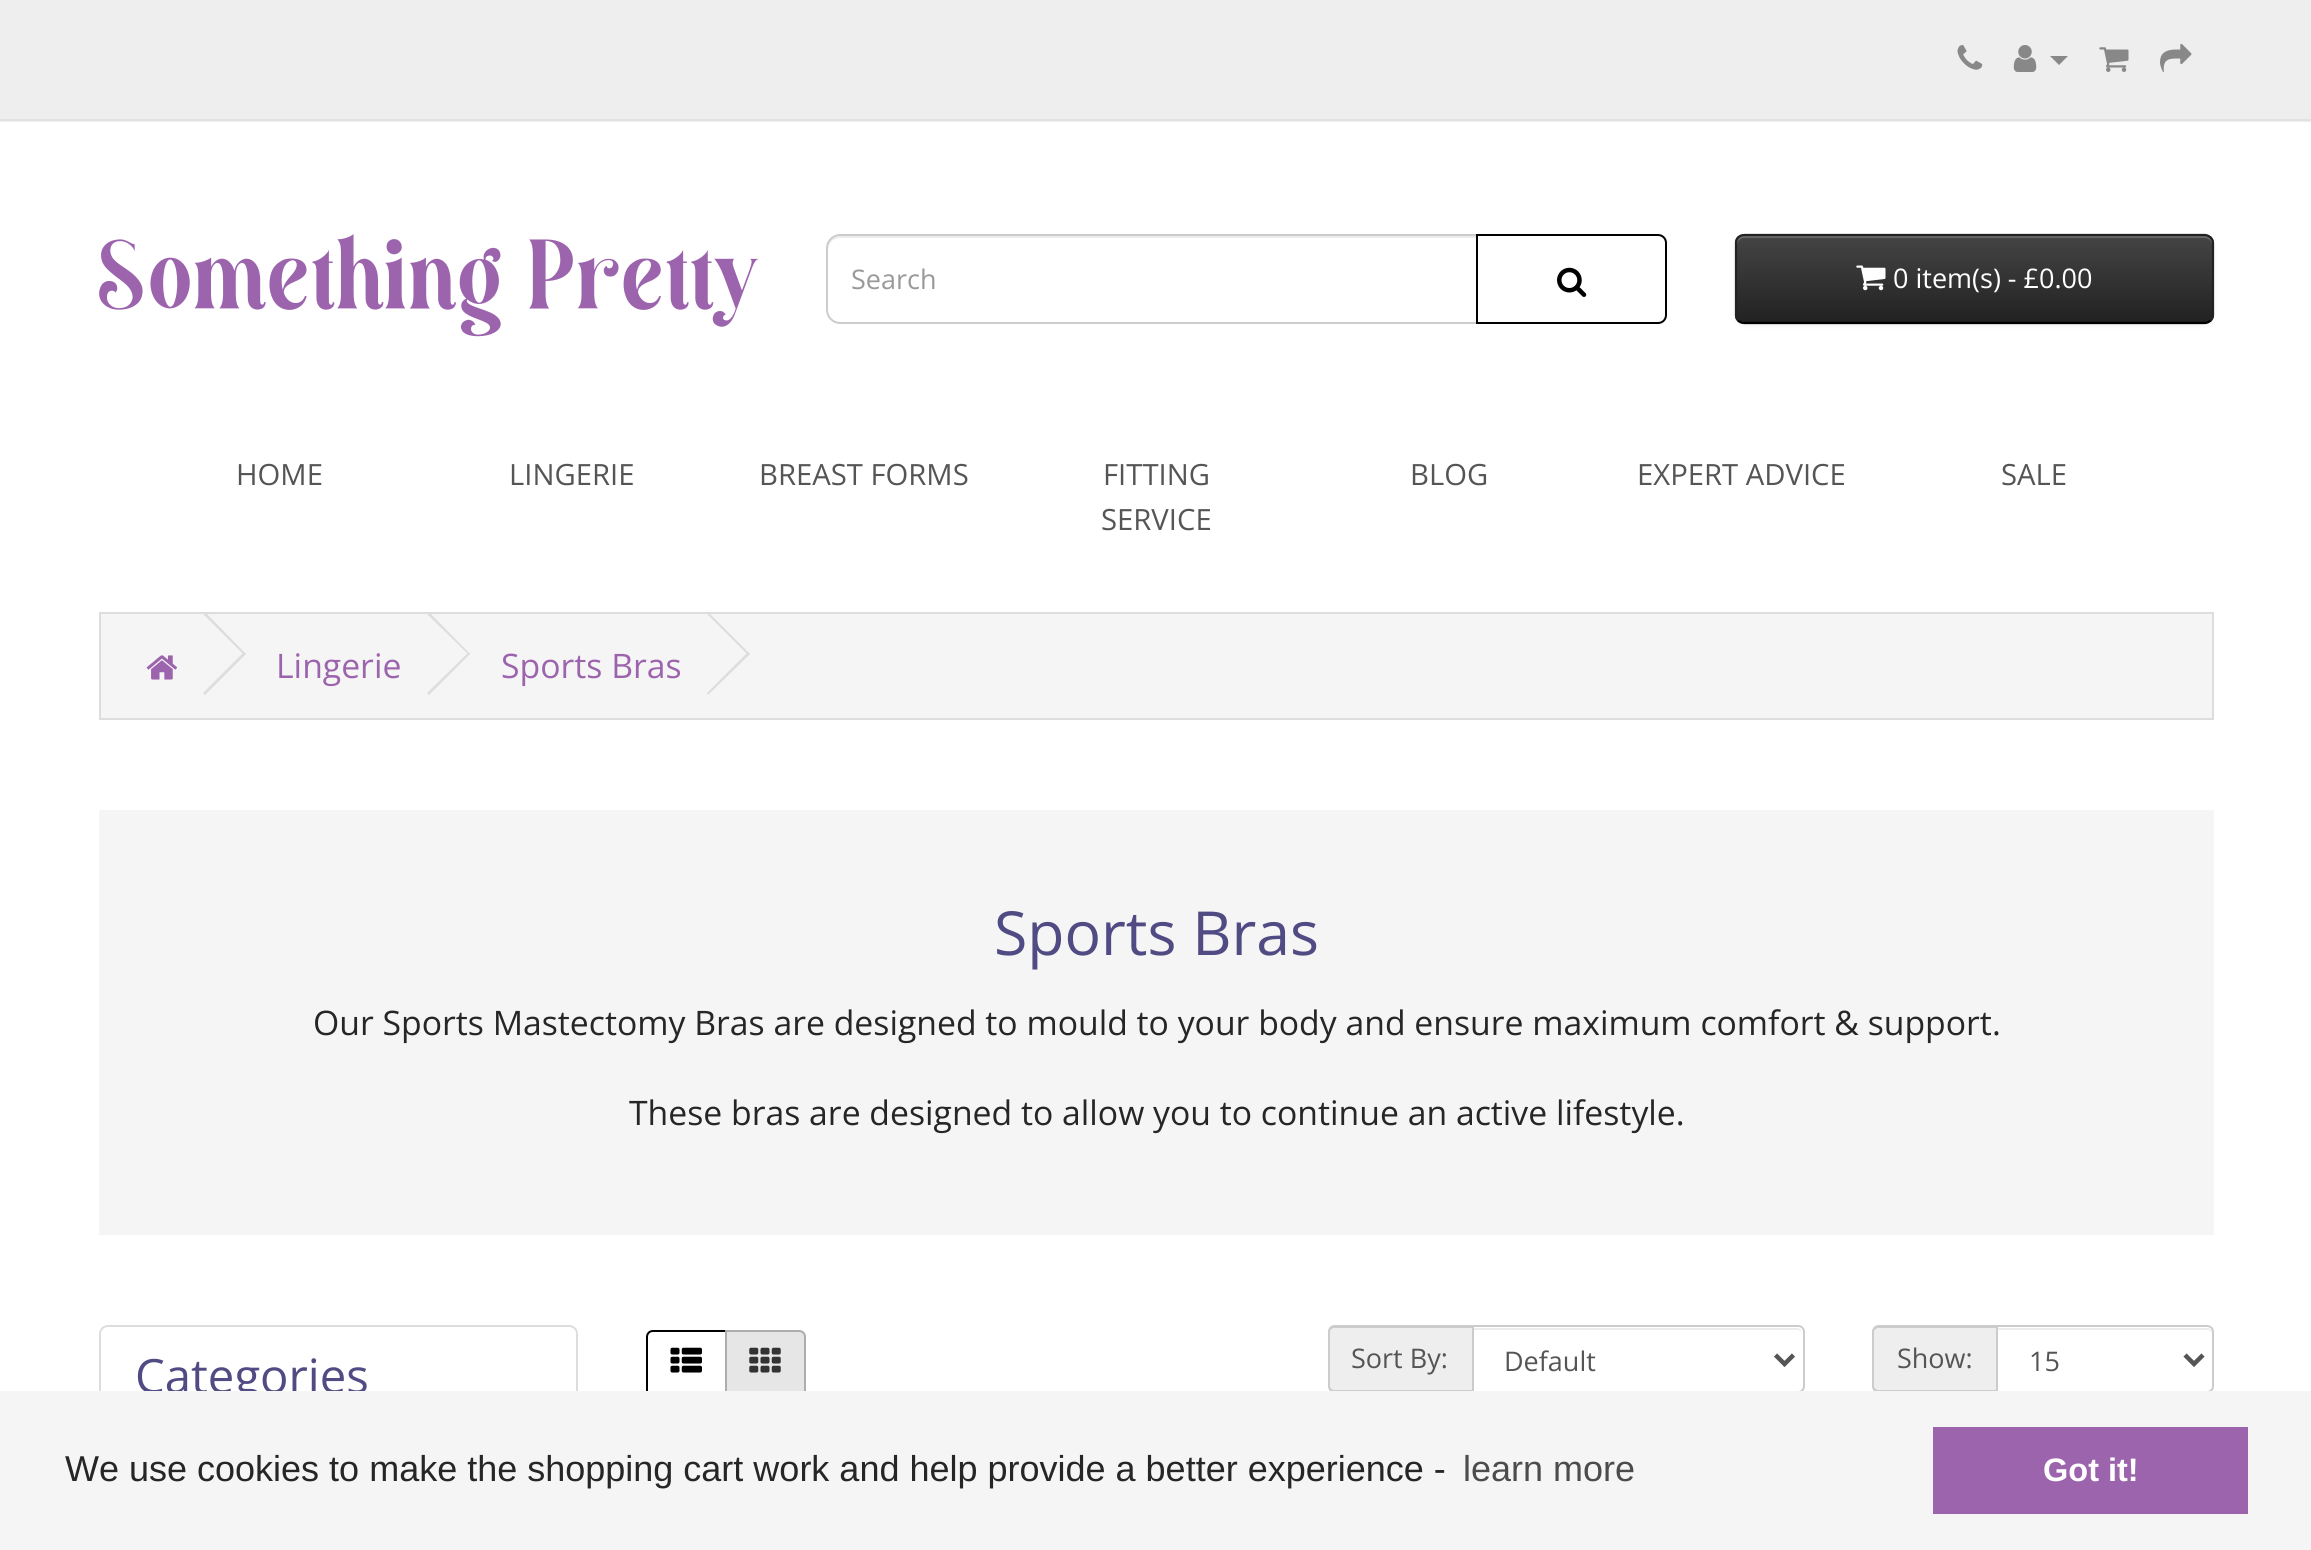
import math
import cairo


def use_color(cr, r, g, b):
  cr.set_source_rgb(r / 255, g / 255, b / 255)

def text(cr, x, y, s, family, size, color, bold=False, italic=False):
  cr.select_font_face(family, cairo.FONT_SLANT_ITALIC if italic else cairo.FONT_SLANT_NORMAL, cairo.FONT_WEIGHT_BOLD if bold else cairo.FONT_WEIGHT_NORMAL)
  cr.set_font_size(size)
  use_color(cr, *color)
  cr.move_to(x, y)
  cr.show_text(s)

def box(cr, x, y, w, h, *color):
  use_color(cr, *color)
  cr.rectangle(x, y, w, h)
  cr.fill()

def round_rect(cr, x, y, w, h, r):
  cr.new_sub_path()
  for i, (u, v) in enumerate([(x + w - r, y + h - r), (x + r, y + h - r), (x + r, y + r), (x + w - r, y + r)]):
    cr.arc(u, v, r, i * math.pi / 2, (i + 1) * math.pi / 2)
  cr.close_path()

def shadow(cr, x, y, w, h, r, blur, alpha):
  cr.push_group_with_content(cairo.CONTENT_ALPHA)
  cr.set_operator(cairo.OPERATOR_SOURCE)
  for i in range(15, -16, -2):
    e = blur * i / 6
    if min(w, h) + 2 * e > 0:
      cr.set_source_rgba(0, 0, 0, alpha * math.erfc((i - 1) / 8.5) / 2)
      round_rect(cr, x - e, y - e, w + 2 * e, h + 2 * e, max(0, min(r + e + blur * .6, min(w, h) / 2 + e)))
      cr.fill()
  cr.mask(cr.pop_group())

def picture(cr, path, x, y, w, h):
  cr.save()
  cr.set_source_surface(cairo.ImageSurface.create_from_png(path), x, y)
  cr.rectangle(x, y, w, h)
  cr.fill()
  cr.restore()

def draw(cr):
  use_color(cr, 255, 255, 255)
  cr.paint()
  box(cr, 0, 0, 2311, 122, 238, 238, 238)
  box(cr, 0, 119, 2311, 2, 226, 226, 226)
  picture(cr, "img_01.png", 1957, 45, 26, 25)
  picture(cr, "img_02.png", 2013, 45, 24, 27)
  use_color(cr, 136, 136, 136)
  cr.new_path()
  cr.move_to(2050, 56)
  cr.line_to(2068, 56)
  cr.line_to(2059, 65)
  cr.close_path()
  cr.fill()
  picture(cr, "img_03.png", 2099, 47, 30, 25)
  picture(cr, "img_04.png", 2160, 43, 32, 29)
  picture(cr, "img_05.png", 99, 234, 659, 103)
  use_color(cr, 236, 236, 236)
  cr.new_path()
  cr.move_to(839, 238)
  cr.line_to(1476, 238)
  cr.line_to(1476, 236)
  cr.line_to(839, 236)
  cr.curve_to(831, 236, 828, 243, 828, 250)
  cr.curve_to(828, 244, 833, 238, 839, 238)
  cr.close_path()
  cr.fill()
  cr.new_path()
  cr.move_to(840, 235)
  cr.line_to(1477, 235)
  cr.line_to(1477, 323)
  cr.line_to(840, 323)
  cr.curve_to(833, 323, 827, 317, 827, 310)
  cr.line_to(827, 248)
  cr.curve_to(827, 241, 833, 235, 840, 235)
  cr.close_path()
  use_color(cr, 204, 204, 204)
  cr.stroke()
  cr.new_path()
  cr.move_to(1477, 235)
  cr.line_to(1658, 235)
  cr.curve_to(1662.5, 235, 1666, 238.5, 1666, 243)
  cr.line_to(1666, 315)
  cr.curve_to(1666, 319.5, 1662.5, 323, 1658, 323)
  cr.line_to(1477, 323)
  cr.close_path()
  use_color(cr, 0, 0, 0)
  cr.stroke()
  picture(cr, "img_06.png", 1557, 267, 30, 30)
  use_color(cr, 0, 0, 0)
  shadow(cr, 1735, 236, 479, 90, 9, 2, 0.05)
  cr.save()
  round_rect(cr, 1735, 234, 479, 90, 9)
  cr.clip()
  gradient = cairo.LinearGradient(1974, 236, 1974, 322)
  gradient.add_color_stop_rgba(0, 0.267, 0.267, 0.267, 1)
  gradient.add_color_stop_rgba(1, 0.133, 0.133, 0.133, 1)
  cr.set_source(gradient)
  cr.rectangle(1735, 236, 479, 86)
  cr.fill()
  cr.restore()
  cr.set_source_rgba(1, 1, 1, 0.2)
  cr.new_path()
  cr.move_to(1744, 238)
  cr.line_to(2205, 238)
  cr.curve_to(2209, 238, 2212, 242, 2212, 245)
  cr.line_to(2212, 243)
  cr.curve_to(2212, 239, 2209, 236, 2205, 236)
  cr.line_to(1744, 236)
  cr.curve_to(1740, 236, 1737, 239, 1737, 243)
  cr.line_to(1737, 245)
  cr.curve_to(1737, 242, 1740, 238, 1744, 238)
  cr.close_path()
  cr.fill()
  cr.new_path()
  cr.move_to(2210.5, 320.5)
  cr.curve_to(2209, 322, 2207, 323, 2205, 323)
  cr.line_to(1744, 323)
  cr.curve_to(1741.5, 323, 1739.5, 322, 1738, 320.5)
  use_color(cr, 0, 0, 0)
  cr.set_line_width(2.2)
  cr.stroke()
  cr.new_path()
  cr.move_to(1738, 320.5)
  cr.curve_to(1736.5, 319, 1736, 317, 1736, 315)
  cr.line_to(1736, 243)
  cr.curve_to(1736, 241, 1736.5, 239, 1738, 237.5)
  cr.curve_to(1739.5, 236, 1741.5, 235, 1744, 235)
  cr.line_to(2205, 235)
  cr.curve_to(2207, 235, 2209, 236, 2210.5, 237.5)
  cr.curve_to(2212, 239, 2213, 241, 2213, 243)
  cr.line_to(2213, 315)
  cr.curve_to(2213, 317, 2212, 319, 2210.5, 320.5)
  use_color(cr, 34, 34, 34)
  cr.stroke()
  picture(cr, "img_07.png", 1856, 265, 30, 26)
  use_color(cr, 245, 245, 245)
  cr.rectangle(100, 613, 2113, 106)
  cr.fill_preserve()
  use_color(cr, 221, 221, 221)
  cr.set_line_width(2)
  cr.stroke()
  picture(cr, "img_08.png", 146, 655, 31, 25)
  cr.new_path()
  cr.move_to(203, 614)
  cr.line_to(205, 612)
  cr.line_to(246, 654)
  cr.line_to(244, 655)
  cr.close_path()
  cr.fill()
  cr.new_path()
  cr.move_to(203, 693)
  cr.line_to(244, 652)
  cr.line_to(246, 654)
  cr.line_to(205, 695)
  cr.close_path()
  cr.fill()
  cr.new_path()
  cr.move_to(427, 614)
  cr.line_to(429, 612)
  cr.line_to(470, 654)
  cr.line_to(469, 655)
  cr.close_path()
  cr.fill()
  cr.new_path()
  cr.move_to(427, 693)
  cr.line_to(469, 652)
  cr.line_to(470, 654)
  cr.line_to(429, 695)
  cr.close_path()
  cr.fill()
  cr.new_path()
  cr.move_to(707, 614)
  cr.line_to(708, 612)
  cr.line_to(750, 654)
  cr.line_to(748, 655)
  cr.close_path()
  cr.fill()
  cr.new_path()
  cr.move_to(707, 693)
  cr.line_to(748, 652)
  cr.line_to(750, 654)
  cr.line_to(708, 695)
  cr.close_path()
  cr.fill()
  box(cr, 99, 810, 2115, 425, 245, 245, 245)
  cr.new_path()
  cr.move_to(108, 1326)
  cr.line_to(569, 1326)
  cr.curve_to(573.5, 1326, 577, 1329.5, 577, 1334)
  cr.line_to(577, 1426)
  cr.line_to(100, 1426)
  cr.line_to(100, 1334)
  cr.curve_to(100, 1329.5, 103.5, 1326, 108, 1326)
  cr.close_path()
  use_color(cr, 221, 221, 221)
  cr.stroke()
  cr.new_path()
  cr.move_to(653, 1331)
  cr.line_to(726, 1331)
  cr.line_to(726, 1396)
  cr.line_to(653, 1396)
  cr.curve_to(649.5, 1396, 647, 1393.5, 647, 1390)
  cr.line_to(647, 1337)
  cr.curve_to(647, 1333.5, 649.5, 1331, 653, 1331)
  cr.close_path()
  use_color(cr, 0, 0, 0)
  cr.stroke()
  picture(cr, "img_09.png", 670, 1347, 32, 26)
  use_color(cr, 230, 230, 230)
  cr.new_path()
  cr.move_to(726, 1331)
  cr.line_to(799, 1331)
  cr.curve_to(802.5, 1331, 805, 1333.5, 805, 1337)
  cr.line_to(805, 1390)
  cr.curve_to(805, 1393.5, 802.5, 1396, 799, 1396)
  cr.line_to(726, 1396)
  cr.close_path()
  cr.fill_preserve()
  use_color(cr, 173, 173, 173)
  cr.stroke()
  picture(cr, "img_10.png", 749, 1347, 32, 26)
  use_color(cr, 238, 238, 238)
  cr.new_path()
  cr.move_to(1335, 1325)
  cr.line_to(1472, 1325)
  cr.line_to(1472, 1393)
  cr.line_to(1335, 1393)
  cr.curve_to(1331, 1393, 1328, 1390, 1328, 1386)
  cr.line_to(1328, 1332)
  cr.curve_to(1328, 1328, 1331, 1325, 1335, 1325)
  cr.close_path()
  cr.fill()
  use_color(cr, 204, 204, 204)
  cr.set_fill_rule(cairo.FILL_RULE_EVEN_ODD)
  cr.new_path()
  cr.move_to(1334, 1325)
  cr.line_to(1472, 1325)
  cr.line_to(1472, 1393)
  cr.line_to(1334, 1393)
  cr.curve_to(1331, 1393, 1328, 1390, 1328, 1386)
  cr.line_to(1328, 1332)
  cr.curve_to(1328, 1328, 1331, 1325, 1334, 1325)
  cr.close_path()
  cr.move_to(1334, 1328)
  cr.line_to(1472, 1328)
  cr.line_to(1472, 1390)
  cr.line_to(1334, 1390)
  cr.curve_to(1332, 1390, 1330, 1388, 1330, 1386)
  cr.line_to(1330, 1332)
  cr.curve_to(1330, 1330, 1332, 1328, 1334, 1328)
  cr.close_path()
  cr.fill()
  use_color(cr, 236, 236, 236)
  cr.set_fill_rule(cairo.FILL_RULE_WINDING)
  cr.new_path()
  cr.move_to(1474, 1330)
  cr.line_to(1798, 1330)
  cr.curve_to(1800, 1330, 1802, 1332, 1802, 1334)
  cr.curve_to(1802, 1331, 1800, 1328, 1797, 1328)
  cr.line_to(1474, 1328)
  cr.close_path()
  cr.fill()
  cr.new_path()
  cr.move_to(1473, 1326)
  cr.line_to(1798, 1326)
  cr.curve_to(1801.5, 1326, 1804, 1328.5, 1804, 1332)
  cr.line_to(1804, 1386)
  cr.curve_to(1804, 1389.5, 1801.5, 1392, 1798, 1392)
  cr.line_to(1473, 1392)
  cr.close_path()
  use_color(cr, 204, 204, 204)
  cr.stroke()
  cr.new_path()
  cr.move_to(1775.5, 1355)
  cr.line_to(1784.5, 1364)
  cr.line_to(1793.5, 1355)
  use_color(cr, 85, 85, 85)
  cr.set_line_width(4.5)
  cr.stroke()
  use_color(cr, 238, 238, 238)
  cr.new_path()
  cr.move_to(1879, 1325)
  cr.line_to(1996, 1325)
  cr.line_to(1996, 1393)
  cr.line_to(1879, 1393)
  cr.curve_to(1875, 1393, 1872, 1390, 1872, 1386)
  cr.line_to(1872, 1332)
  cr.curve_to(1872, 1328, 1875, 1325, 1879, 1325)
  cr.close_path()
  cr.fill()
  use_color(cr, 204, 204, 204)
  cr.set_fill_rule(cairo.FILL_RULE_EVEN_ODD)
  cr.new_path()
  cr.move_to(1879, 1325)
  cr.line_to(1996, 1325)
  cr.line_to(1996, 1393)
  cr.line_to(1879, 1393)
  cr.curve_to(1875, 1393, 1872, 1390, 1872, 1386)
  cr.line_to(1872, 1332)
  cr.curve_to(1872, 1328, 1875, 1325, 1879, 1325)
  cr.close_path()
  cr.move_to(1879, 1328)
  cr.line_to(1996, 1328)
  cr.line_to(1996, 1390)
  cr.line_to(1879, 1390)
  cr.curve_to(1876, 1390, 1874, 1388, 1874, 1386)
  cr.line_to(1874, 1332)
  cr.curve_to(1874, 1330, 1876, 1328, 1879, 1328)
  cr.close_path()
  cr.fill()
  use_color(cr, 236, 236, 236)
  cr.set_fill_rule(cairo.FILL_RULE_WINDING)
  cr.new_path()
  cr.move_to(1998, 1330)
  cr.line_to(2207, 1330)
  cr.curve_to(2210, 1330, 2212, 1332, 2212, 1334)
  cr.curve_to(2212, 1331, 2211, 1329, 2208, 1328)
  cr.line_to(1998, 1328)
  cr.close_path()
  cr.fill()
  cr.new_path()
  cr.move_to(1997, 1326)
  cr.line_to(2207, 1326)
  cr.curve_to(2210.5, 1326, 2213, 1328.5, 2213, 1332)
  cr.line_to(2213, 1386)
  cr.curve_to(2213, 1389.5, 2210.5, 1392, 2207, 1392)
  cr.line_to(1997, 1392)
  cr.close_path()
  use_color(cr, 204, 204, 204)
  cr.set_line_width(2)
  cr.stroke()
  cr.new_path()
  cr.move_to(2185, 1355)
  cr.line_to(2194, 1364)
  cr.line_to(2203, 1355)
  use_color(cr, 85, 85, 85)
  cr.set_line_width(4.5)
  cr.stroke()
  text(cr, 851, 289, "Search", "Open Sans", 27, (153, 153, 153))
  text(cr, 1893, 288, "0 item(s) - £0.00", "Open Sans", 27, (255, 255, 255))
  text(cr, 236, 485, "HOME", "Open Sans", 29.25, (85, 85, 85))
  text(cr, 509, 485, "LINGERIE", "Open Sans", 29.25, (85, 85, 85))
  text(cr, 759, 485, "BREAST FORMS", "Open Sans", 29.25, (85, 85, 85))
  text(cr, 1103, 485, "FITTING", "Open Sans", 29.25, (85, 85, 85))
  text(cr, 1101, 530, "SERVICE", "Open Sans", 29.25, (85, 85, 85))
  text(cr, 1410, 485, "BLOG", "Open Sans", 29.25, (85, 85, 85))
  text(cr, 1637, 485, "EXPERT ADVICE", "Open Sans", 29.25, (85, 85, 85))
  text(cr, 2001, 485, "SALE", "Open Sans", 29.25, (85, 85, 85))
  text(cr, 276, 678, "Lingerie", "Open Sans", 33.75, (157, 100, 174))
  text(cr, 501, 678, "Sports Bras", "Open Sans", 33.75, (157, 100, 174))
  text(cr, 994, 955, "Sports Bras", "Open Sans", 60.75, (81, 75, 132))
  text(cr, 313, 1035, "Our Sports Mastectomy Bras are designed to mould to your body and ensure maximum comfort & support.", "Open Sans", 33.75, (38, 38, 38))
  text(cr, 629, 1125, "These bras are designed to allow you to continue an active lifestyle.", "Open Sans", 33.75, (38, 38, 38))
  text(cr, 135, 1393, "Categories", "Open Sans", 47.25, (81, 75, 132))
  text(cr, 1351, 1368, "Sort By:", "Open Sans", 27, (85, 85, 85))
  text(cr, 1504, 1371, "Default", "Open Sans", 27, (85, 85, 85))
  text(cr, 1897, 1368, "Show:", "Open Sans", 27, (85, 85, 85))
  text(cr, 2029, 1371, "15", "Open Sans", 27, (85, 85, 85))
  box(cr, 0, 1391, 2311, 159, 245, 245, 245)
  text(cr, 65, 1481, "We use cookies to make the shopping cart work and help provide a better experience -", "Liberation Sans", 36, (38, 38, 38))
  text(cr, 1463, 1481, "learn more", "Liberation Sans", 36, (76, 76, 76))
  box(cr, 1933, 1427, 315, 87, 157, 100, 174)
  text(cr, 2043, 1481, "Got it!", "Liberation Sans", 32.5, (255, 255, 255), bold=True)


surface = cairo.ImageSurface(cairo.FORMAT_RGB24, 2311, 1550)
cr = cairo.Context(surface)
options = cairo.FontOptions()
options.set_hint_metrics(cairo.HINT_METRICS_OFF)
options.set_hint_style(cairo.HINT_STYLE_NONE)
cr.set_font_options(options)
cr.set_miter_limit(4)
draw(cr)
surface.write_to_png("out.png")
